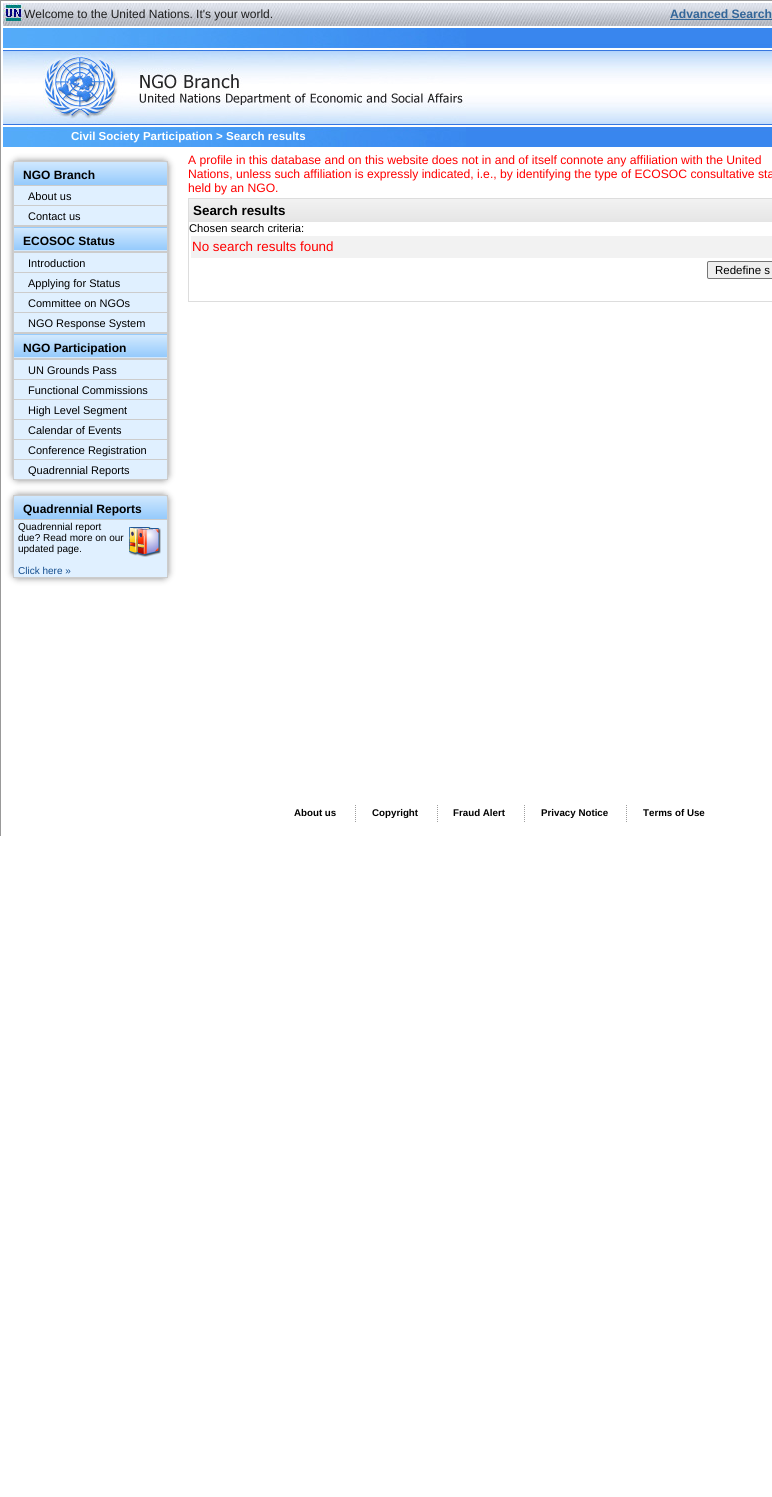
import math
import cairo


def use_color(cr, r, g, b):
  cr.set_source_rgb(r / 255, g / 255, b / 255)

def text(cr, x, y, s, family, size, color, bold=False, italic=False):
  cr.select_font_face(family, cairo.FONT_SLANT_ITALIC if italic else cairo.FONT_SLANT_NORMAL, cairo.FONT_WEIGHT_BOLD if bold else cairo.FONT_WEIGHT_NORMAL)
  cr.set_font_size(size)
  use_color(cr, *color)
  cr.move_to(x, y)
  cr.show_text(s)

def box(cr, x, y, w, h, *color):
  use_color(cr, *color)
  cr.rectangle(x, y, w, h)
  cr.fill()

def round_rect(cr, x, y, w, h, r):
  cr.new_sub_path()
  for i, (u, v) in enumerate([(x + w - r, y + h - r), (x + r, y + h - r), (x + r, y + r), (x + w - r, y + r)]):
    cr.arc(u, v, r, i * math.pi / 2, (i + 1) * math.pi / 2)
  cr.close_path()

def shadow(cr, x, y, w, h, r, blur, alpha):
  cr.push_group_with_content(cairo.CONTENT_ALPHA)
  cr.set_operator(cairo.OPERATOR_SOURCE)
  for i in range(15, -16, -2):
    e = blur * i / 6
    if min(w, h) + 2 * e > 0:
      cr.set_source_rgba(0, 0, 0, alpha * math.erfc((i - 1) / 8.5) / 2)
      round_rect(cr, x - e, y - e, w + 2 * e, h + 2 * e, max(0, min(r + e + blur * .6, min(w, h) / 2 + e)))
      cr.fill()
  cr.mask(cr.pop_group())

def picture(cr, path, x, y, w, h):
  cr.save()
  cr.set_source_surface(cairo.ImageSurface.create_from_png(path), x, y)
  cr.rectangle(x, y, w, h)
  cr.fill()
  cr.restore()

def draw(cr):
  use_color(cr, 255, 255, 255)
  cr.paint()
  box(cr, 0, 0, 772, 1, 153, 153, 153)
  box(cr, 0, 0, 1, 836, 153, 153, 153)
  picture(cr, "img_01.png", 3, 3, 769, 23)
  picture(cr, "img_02.png", 3, 3, 21, 18)
  box(cr, 670, 19, 102, 1, 51, 102, 153)
  picture(cr, "img_03.png", 466, 28, 306, 119)
  picture(cr, "img_04.png", 3, 28, 463, 119)
  use_color(cr, 136, 136, 136)
  shadow(cr, 13, 161, 155, 319, 5, 3.5, 1)
  gradient = cairo.LinearGradient(91, 161, 91, 185)
  gradient.add_color_stop_rgba(0, 0.824, 0.914, 0.996, 1)
  gradient.add_color_stop_rgba(1, 0.584, 0.792, 0.988, 1)
  cr.set_source(gradient)
  cr.new_path()
  cr.move_to(18, 161)
  cr.line_to(163, 161)
  cr.curve_to(166, 161, 168, 163, 168, 166)
  cr.line_to(168, 185)
  cr.line_to(13, 185)
  cr.line_to(13, 166)
  cr.curve_to(13, 163, 15, 161, 18, 161)
  cr.close_path()
  cr.fill()
  box(cr, 13, 161, 155, 1, 204, 204, 204)
  gradient = cairo.LinearGradient(91, 206, 91, 228)
  gradient.add_color_stop_rgba(0, 0.824, 0.914, 0.996, 1)
  gradient.add_color_stop_rgba(1, 0.584, 0.792, 0.988, 1)
  cr.set_source(gradient)
  cr.rectangle(13, 227, 155, 1)
  cr.fill()
  gradient = cairo.LinearGradient(91, 250, 91, 272)
  gradient.add_color_stop_rgba(0, 0.824, 0.914, 0.996, 1)
  gradient.add_color_stop_rgba(1, 0.584, 0.792, 0.988, 1)
  cr.set_source(gradient)
  cr.rectangle(13, 250, 155, 1)
  cr.fill()
  gradient = cairo.LinearGradient(91, 313, 91, 335)
  gradient.add_color_stop_rgba(0, 0.824, 0.914, 0.996, 1)
  gradient.add_color_stop_rgba(1, 0.584, 0.792, 0.988, 1)
  cr.set_source(gradient)
  cr.rectangle(13, 334, 155, 1)
  cr.fill()
  gradient = cairo.LinearGradient(91, 357, 91, 379)
  gradient.add_color_stop_rgba(0, 0.824, 0.914, 0.996, 1)
  gradient.add_color_stop_rgba(1, 0.584, 0.792, 0.988, 1)
  cr.set_source(gradient)
  cr.rectangle(13, 357, 155, 1)
  cr.fill()
  box(cr, 167, 161, 1, 319, 204, 204, 204)
  box(cr, 13, 479, 155, 1, 204, 204, 204)
  box(cr, 13, 161, 1, 319, 204, 204, 204)
  box(cr, 13, 185, 155, 1, 204, 204, 204)
  box(cr, 14, 186, 153, 19, 224, 240, 255)
  box(cr, 13, 205, 155, 1, 204, 204, 204)
  box(cr, 14, 206, 153, 19, 224, 240, 255)
  gradient = cairo.LinearGradient(91, 228, 91, 250)
  gradient.add_color_stop_rgba(0, 0.824, 0.914, 0.996, 1)
  gradient.add_color_stop_rgba(1, 0.584, 0.792, 0.988, 1)
  cr.set_source(gradient)
  cr.rectangle(14, 228, 153, 22)
  cr.fill()
  box(cr, 12, 225, 157, 2, 204, 204, 204)
  box(cr, 12, 251, 157, 2, 204, 204, 204)
  box(cr, 14, 253, 153, 19, 224, 240, 255)
  box(cr, 13, 272, 155, 1, 204, 204, 204)
  box(cr, 14, 273, 153, 19, 224, 240, 255)
  box(cr, 13, 292, 155, 1, 204, 204, 204)
  box(cr, 14, 293, 153, 19, 224, 240, 255)
  box(cr, 13, 312, 155, 1, 204, 204, 204)
  box(cr, 14, 313, 153, 19, 224, 240, 255)
  gradient = cairo.LinearGradient(91, 335, 91, 357)
  gradient.add_color_stop_rgba(0, 0.824, 0.914, 0.996, 1)
  gradient.add_color_stop_rgba(1, 0.584, 0.792, 0.988, 1)
  cr.set_source(gradient)
  cr.rectangle(14, 335, 153, 22)
  cr.fill()
  box(cr, 12, 332, 157, 2, 204, 204, 204)
  box(cr, 12, 358, 157, 2, 204, 204, 204)
  box(cr, 14, 360, 153, 19, 224, 240, 255)
  box(cr, 13, 379, 155, 1, 204, 204, 204)
  box(cr, 14, 380, 153, 19, 224, 240, 255)
  box(cr, 13, 399, 155, 1, 204, 204, 204)
  box(cr, 14, 400, 153, 19, 224, 240, 255)
  box(cr, 13, 419, 155, 1, 204, 204, 204)
  box(cr, 14, 420, 153, 19, 224, 240, 255)
  box(cr, 13, 439, 155, 1, 204, 204, 204)
  box(cr, 14, 440, 153, 19, 224, 240, 255)
  box(cr, 13, 459, 155, 1, 204, 204, 204)
  box(cr, 14, 460, 153, 19, 224, 240, 255)
  use_color(cr, 136, 136, 136)
  shadow(cr, 13, 495, 155, 83, 5, 3.5, 1)
  gradient = cairo.LinearGradient(91, 495, 91, 519)
  gradient.add_color_stop_rgba(0, 0.824, 0.914, 0.996, 1)
  gradient.add_color_stop_rgba(1, 0.584, 0.792, 0.988, 1)
  cr.set_source(gradient)
  cr.new_path()
  cr.move_to(18, 495)
  cr.line_to(163, 495)
  cr.curve_to(166, 495, 168, 497, 168, 500)
  cr.line_to(168, 519)
  cr.line_to(13, 519)
  cr.line_to(13, 500)
  cr.curve_to(13, 497, 15, 495, 18, 495)
  cr.close_path()
  cr.fill()
  box(cr, 13, 495, 155, 1, 204, 204, 204)
  box(cr, 167, 495, 1, 83, 204, 204, 204)
  box(cr, 13, 577, 155, 1, 204, 204, 204)
  box(cr, 13, 495, 1, 83, 204, 204, 204)
  box(cr, 13, 519, 155, 1, 204, 204, 204)
  box(cr, 14, 520, 153, 57, 224, 240, 255)
  picture(cr, "img_05.png", 129, 527, 32, 30)
  cr.rectangle(188.5, 198.5, 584, 103)
  use_color(cr, 221, 221, 221)
  cr.set_line_width(1)
  cr.stroke()
  gradient = cairo.LinearGradient(499, 199, 499, 222)
  gradient.add_color_stop_rgba(0, 0.949, 0.949, 0.949, 1)
  gradient.add_color_stop_rgba(1, 0.898, 0.898, 0.898, 1)
  cr.set_source(gradient)
  cr.rectangle(189, 199, 583, 23)
  cr.fill()
  box(cr, 191, 236, 581, 22, 242, 242, 242)
  use_color(cr, 239, 239, 239)
  round_rect(cr, 707.5, 261.5, 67, 17, 1.5)
  cr.fill_preserve()
  use_color(cr, 118, 118, 118)
  cr.stroke()
  cr.new_path()
  cr.move_to(355.5, 805)
  cr.line_to(355.5, 822)
  use_color(cr, 158, 158, 158)
  cr.set_dash([1, 1])
  cr.stroke()
  cr.new_path()
  cr.move_to(437.5, 805)
  cr.line_to(437.5, 822)
  cr.stroke()
  cr.new_path()
  cr.move_to(524.5, 805)
  cr.line_to(524.5, 822)
  cr.stroke()
  cr.new_path()
  cr.move_to(626.5, 805)
  cr.line_to(626.5, 822)
  cr.stroke()
  text(cr, 24, 18, "Welcome to the United Nations. It's your world.", "Liberation Sans", 12, (30, 30, 30))
  text(cr, 670, 18, "Advanced Search", "Liberation Sans", 12.15, (51, 102, 153), bold=True)
  text(cr, 71, 140, "Civil Society Participation > Search results", "Liberation Sans", 11.55, (255, 255, 255), bold=True)
  text(cr, 23, 179, "NGO Branch", "Liberation Sans", 12, (0, 0, 0), bold=True)
  text(cr, 28, 200, "About us", "Liberation Sans", 11, (0, 0, 0))
  text(cr, 28, 220, "Contact us", "Liberation Sans", 11, (0, 0, 0))
  text(cr, 23, 245, "ECOSOC Status", "Liberation Sans", 12, (0, 0, 0), bold=True)
  text(cr, 28, 267, "Introduction", "Liberation Sans", 11, (0, 0, 0))
  text(cr, 28, 287, "Applying for Status", "Liberation Sans", 11, (0, 0, 0))
  text(cr, 28, 307, "Committee on NGOs", "Liberation Sans", 11, (0, 0, 0))
  text(cr, 28, 327, "NGO Response System", "Liberation Sans", 11, (0, 0, 0))
  text(cr, 23, 352, "NGO Participation", "Liberation Sans", 12, (0, 0, 0), bold=True)
  text(cr, 28, 374, "UN Grounds Pass", "Liberation Sans", 11, (0, 0, 0))
  text(cr, 28, 394, "Functional Commissions", "Liberation Sans", 11, (0, 0, 0))
  text(cr, 28, 414, "High Level Segment", "Liberation Sans", 11, (0, 0, 0))
  text(cr, 28, 434, "Calendar of Events", "Liberation Sans", 11, (0, 0, 0))
  text(cr, 28, 454, "Conference Registration", "Liberation Sans", 11, (0, 0, 0))
  text(cr, 28, 474, "Quadrennial Reports", "Liberation Sans", 11, (0, 0, 0))
  text(cr, 23, 513, "Quadrennial Reports", "Liberation Sans", 12, (0, 0, 0), bold=True)
  text(cr, 18, 530, "Quadrennial report", "Liberation Sans", 10, (0, 0, 0))
  text(cr, 18, 541, "due? Read more on our", "Liberation Sans", 10, (0, 0, 0))
  text(cr, 18, 552, "updated page.", "Liberation Sans", 10, (0, 0, 0))
  text(cr, 18, 574, "Click here »", "Liberation Sans", 10, (18, 76, 141))
  text(cr, 188, 164, "A profile in this database and on this website does not in and of itself connote any affiliation with the United", "Liberation Sans", 12.15, (255, 0, 0))
  text(cr, 188, 178, "Nations, unless such affiliation is expressly indicated, i.e., by identifying the type of ECOSOC consultative sta", "Liberation Sans", 12.15, (255, 0, 0))
  text(cr, 188, 192, "held by an NGO.", "Liberation Sans", 12.15, (255, 0, 0))
  text(cr, 193, 215, "Search results", "Liberation Sans", 13.4, (0, 0, 0), bold=True)
  text(cr, 189, 232, "Chosen search criteria:", "Liberation Sans", 11.2, (0, 0, 0))
  text(cr, 192, 251, "No search results found", "Liberation Sans", 13.4, (255, 0, 0))
  text(cr, 715, 274, "Redefine s", "Liberation Sans", 11.5, (0, 0, 0))
  text(cr, 294, 816, "About us", "Liberation Sans", 9.75, (0, 0, 0), bold=True)
  text(cr, 372, 816, "Copyright", "Liberation Sans", 9.75, (0, 0, 0), bold=True)
  text(cr, 453, 816, "Fraud Alert", "Liberation Sans", 9.75, (0, 0, 0), bold=True)
  text(cr, 541, 816, "Privacy Notice", "Liberation Sans", 9.75, (0, 0, 0), bold=True)
  text(cr, 643, 816, "Terms of Use", "Liberation Sans", 9.75, (0, 0, 0), bold=True)


surface = cairo.ImageSurface(cairo.FORMAT_RGB24, 772, 1497)
cr = cairo.Context(surface)
options = cairo.FontOptions()
options.set_hint_metrics(cairo.HINT_METRICS_OFF)
options.set_hint_style(cairo.HINT_STYLE_NONE)
cr.set_font_options(options)
cr.set_miter_limit(4)
draw(cr)
surface.write_to_png("out.png")
